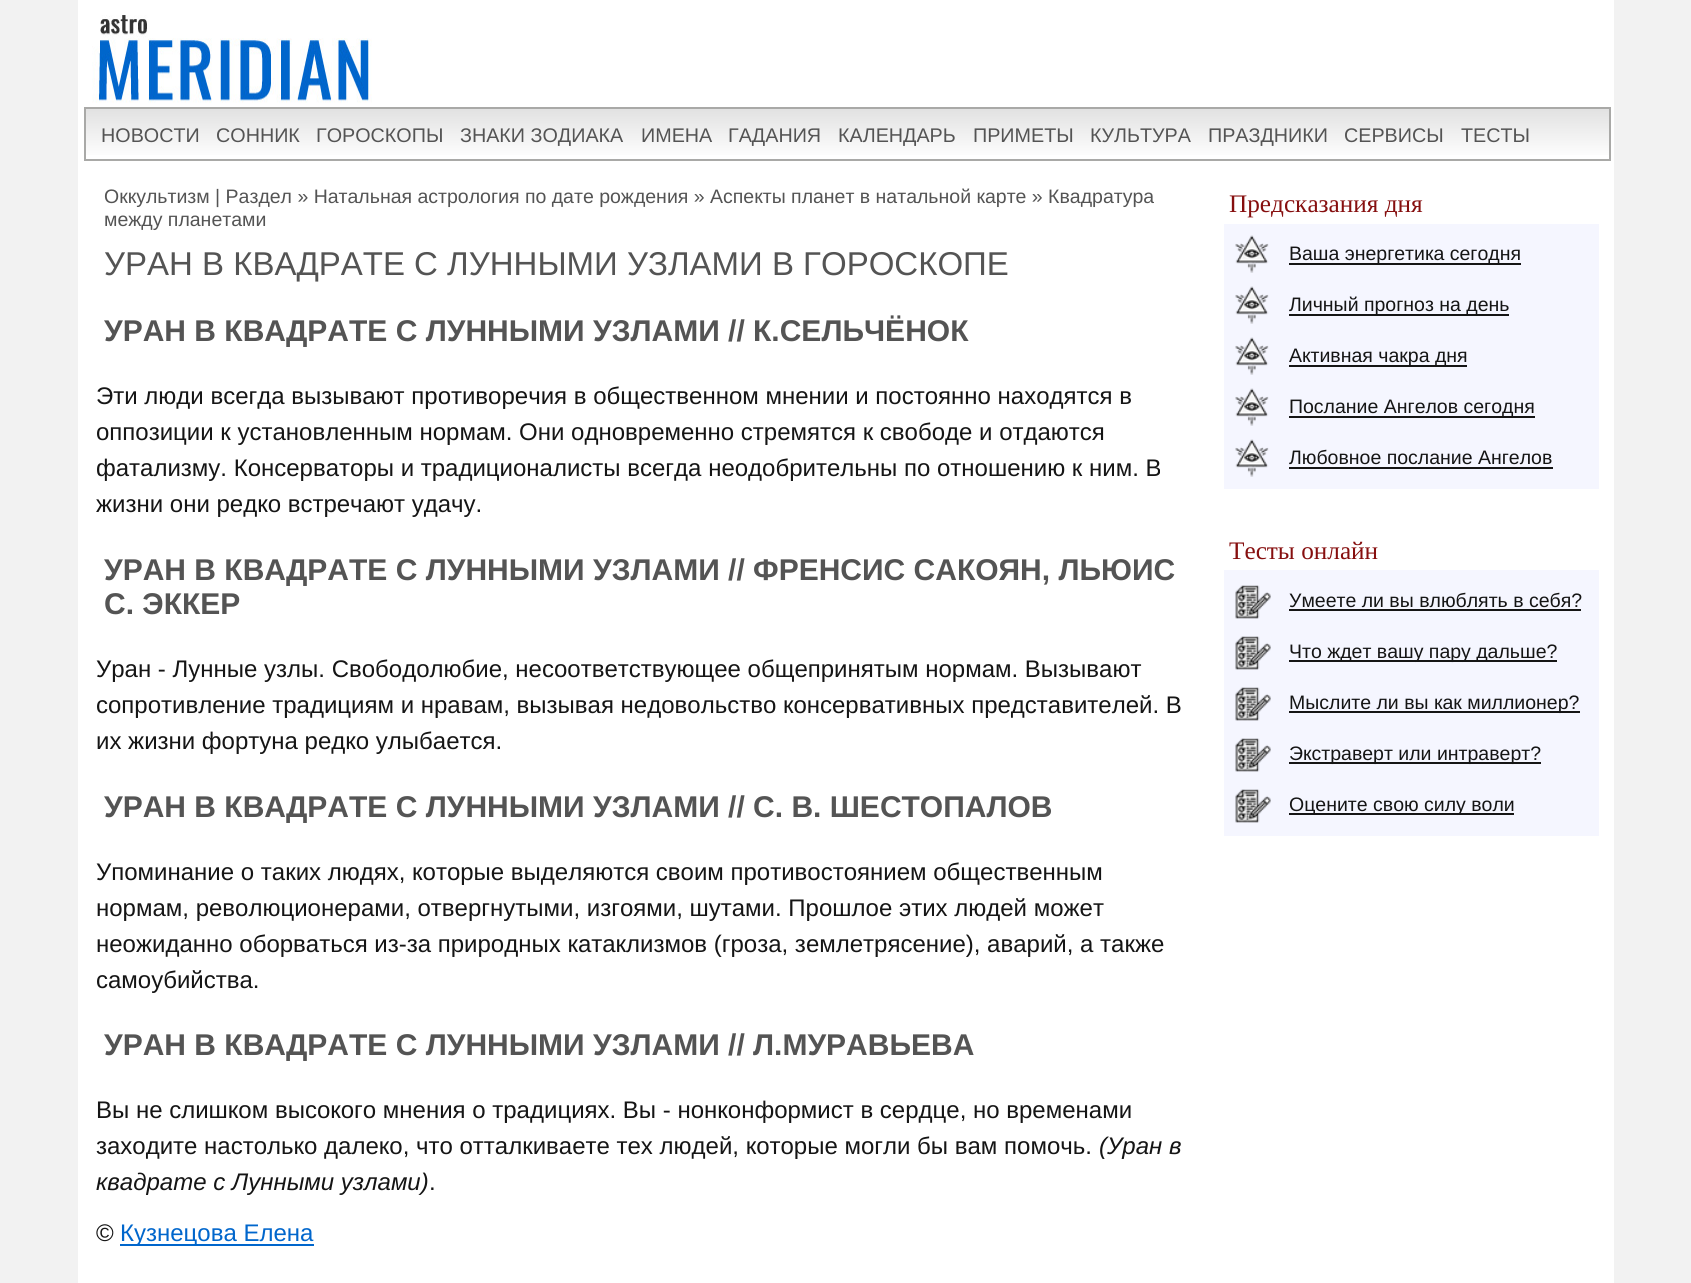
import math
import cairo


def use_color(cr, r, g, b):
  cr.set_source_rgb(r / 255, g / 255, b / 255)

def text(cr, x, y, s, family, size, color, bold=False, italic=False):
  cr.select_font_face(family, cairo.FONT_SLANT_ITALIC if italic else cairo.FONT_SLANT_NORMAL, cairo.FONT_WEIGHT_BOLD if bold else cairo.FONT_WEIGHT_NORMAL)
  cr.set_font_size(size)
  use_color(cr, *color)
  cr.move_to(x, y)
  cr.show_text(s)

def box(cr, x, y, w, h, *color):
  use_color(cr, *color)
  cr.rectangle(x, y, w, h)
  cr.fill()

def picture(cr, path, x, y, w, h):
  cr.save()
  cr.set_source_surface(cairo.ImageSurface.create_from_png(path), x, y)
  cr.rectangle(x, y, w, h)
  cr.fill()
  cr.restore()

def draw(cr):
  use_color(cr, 242, 242, 242)
  cr.paint()
  box(cr, 78, 0, 1536, 1283, 255, 255, 255)
  picture(cr, "img_01.png", 92, 15, 280, 88)
  gradient = cairo.LinearGradient(848, 108, 848, 159)
  gradient.add_color_stop_rgba(0, 0.882, 0.882, 0.882, 1)
  gradient.add_color_stop_rgba(1, 1, 1, 1, 1)
  cr.set_source(gradient)
  cr.rectangle(86, 109, 1523, 46)
  cr.fill()
  cr.rectangle(85, 108, 1525, 52)
  use_color(cr, 169, 169, 167)
  cr.stroke()
  box(cr, 120, 1244, 194, 2, 0, 102, 204)
  box(cr, 1224, 224, 375, 265, 245, 246, 255)
  picture(cr, "img_02.png", 1235, 235, 34, 38)
  box(cr, 1289, 263, 232, 2, 21, 21, 21)
  picture(cr, "img_02.png", 1235, 286, 34, 38)
  box(cr, 1289, 314, 220, 2, 21, 21, 21)
  picture(cr, "img_02.png", 1235, 337, 34, 38)
  box(cr, 1289, 365, 178, 2, 21, 21, 21)
  picture(cr, "img_02.png", 1235, 388, 34, 38)
  box(cr, 1289, 416, 246, 2, 21, 21, 21)
  picture(cr, "img_02.png", 1235, 439, 34, 38)
  box(cr, 1289, 467, 264, 2, 21, 21, 21)
  box(cr, 1224, 570, 375, 266, 245, 246, 255)
  picture(cr, "img_03.png", 1235, 585, 36, 34)
  box(cr, 1289, 609, 292, 2, 21, 21, 21)
  picture(cr, "img_03.png", 1235, 636, 36, 34)
  box(cr, 1289, 660, 268, 2, 21, 21, 21)
  picture(cr, "img_03.png", 1235, 687, 36, 34)
  box(cr, 1289, 711, 291, 2, 21, 21, 21)
  picture(cr, "img_03.png", 1235, 738, 36, 34)
  box(cr, 1289, 762, 252, 2, 21, 21, 21)
  picture(cr, "img_03.png", 1235, 789, 36, 34)
  box(cr, 1289, 813, 225, 2, 21, 21, 21)
  text(cr, 101, 142, "НОВОСТИ", "Liberation Sans", 19.75, (84, 84, 84))
  text(cr, 216, 142, "СОННИК", "Liberation Sans", 19.75, (84, 84, 84))
  text(cr, 316, 142, "ГОРОСКОПЫ", "Liberation Sans", 19.75, (84, 84, 84))
  text(cr, 460, 142, "ЗНАКИ ЗОДИАКА", "Liberation Sans", 19.75, (84, 84, 84))
  text(cr, 641, 142, "ИМЕНА", "Liberation Sans", 19.75, (84, 84, 84))
  text(cr, 728, 142, "ГАДАНИЯ", "Liberation Sans", 19.75, (84, 84, 84))
  text(cr, 838, 142, "КАЛЕНДАРЬ", "Liberation Sans", 19.75, (84, 84, 84))
  text(cr, 973, 142, "ПРИМЕТЫ", "Liberation Sans", 19.75, (84, 84, 84))
  text(cr, 1090, 142, "КУЛЬТУРА", "Liberation Sans", 19.75, (84, 84, 84))
  text(cr, 1208, 142, "ПРАЗДНИКИ", "Liberation Sans", 19.75, (84, 84, 84))
  text(cr, 1344, 142, "СЕРВИСЫ", "Liberation Sans", 19.75, (84, 84, 84))
  text(cr, 1461, 142, "ТЕСТЫ", "Liberation Sans", 19.75, (84, 84, 84))
  text(cr, 104, 203, "Оккультизм | Раздел » Натальная астрология по дате рождения » Аспекты планет в натальной карте » Квадратура", "Liberation Sans", 19.5, (84, 84, 84))
  text(cr, 104, 226, "между планетами", "Liberation Sans", 19.5, (84, 84, 84))
  text(cr, 104, 275, "УРАН В КВАДРАТЕ С ЛУННЫМИ УЗЛАМИ В ГОРОСКОПЕ", "Liberation Sans", 33, (84, 84, 84))
  text(cr, 104, 341, "УРАН В КВАДРАТЕ С ЛУННЫМИ УЗЛАМИ // К.СЕЛЬЧЁНОК", "Liberation Sans", 30, (84, 84, 84), bold=True)
  text(cr, 96, 404, "Эти люди всегда вызывают противоречия в общественном мнении и постоянно находятся в", "Liberation Sans", 24, (21, 21, 21))
  text(cr, 96, 440, "оппозиции к установленным нормам. Они одновременно стремятся к свободе и отдаются", "Liberation Sans", 24, (21, 21, 21))
  text(cr, 96, 476, "фатализму. Консерваторы и традиционалисты всегда неодобрительны по отношению к ним. В", "Liberation Sans", 24, (21, 21, 21))
  text(cr, 96, 512, "жизни они редко встречают удачу.", "Liberation Sans", 24, (21, 21, 21))
  text(cr, 104, 580, "УРАН В КВАДРАТЕ С ЛУННЫМИ УЗЛАМИ // ФРЕНСИС САКОЯН, ЛЬЮИС", "Liberation Sans", 30, (84, 84, 84), bold=True)
  text(cr, 104, 614, "С. ЭККЕР", "Liberation Sans", 30, (84, 84, 84), bold=True)
  text(cr, 96, 677, "Уран - Лунные узлы. Свободолюбие, несоответствующее общепринятым нормам. Вызывают", "Liberation Sans", 24, (21, 21, 21))
  text(cr, 96, 713, "сопротивление традициям и нравам, вызывая недовольство консервативных представителей. В", "Liberation Sans", 24, (21, 21, 21))
  text(cr, 96, 749, "их жизни фортуна редко улыбается.", "Liberation Sans", 24, (21, 21, 21))
  text(cr, 104, 817, "УРАН В КВАДРАТЕ С ЛУННЫМИ УЗЛАМИ // С. В. ШЕСТОПАЛОВ", "Liberation Sans", 30, (84, 84, 84), bold=True)
  text(cr, 96, 880, "Упоминание о таких людях, которые выделяются своим противостоянием общественным", "Liberation Sans", 24, (21, 21, 21))
  text(cr, 96, 916, "нормам, революционерами, отвергнутыми, изгоями, шутами. Прошлое этих людей может", "Liberation Sans", 24, (21, 21, 21))
  text(cr, 96, 952, "неожиданно оборваться из-за природных катаклизмов (гроза, землетрясение), аварий, а также", "Liberation Sans", 24, (21, 21, 21))
  text(cr, 96, 988, "самоубийства.", "Liberation Sans", 24, (21, 21, 21))
  text(cr, 104, 1055, "УРАН В КВАДРАТЕ С ЛУННЫМИ УЗЛАМИ // Л.МУРАВЬЕВА", "Liberation Sans", 30, (84, 84, 84), bold=True)
  text(cr, 96, 1118, "Вы не слишком высокого мнения о традициях. Вы - нонконформист в сердце, но временами", "Liberation Sans", 24, (21, 21, 21))
  text(cr, 96, 1154, "заходите настолько далеко, что отталкиваете тех людей, которые могли бы вам помочь.", "Liberation Sans", 24, (21, 21, 21))
  text(cr, 1099, 1154, "(Уран в", "Liberation Sans", 24, (21, 21, 21), italic=True)
  text(cr, 96, 1190, "квадрате с Лунными узлами)", "Liberation Sans", 24, (21, 21, 21), italic=True)
  text(cr, 429, 1190, ".", "Liberation Sans", 24, (21, 21, 21))
  text(cr, 96, 1241, "©", "Liberation Sans", 24, (21, 21, 21))
  text(cr, 120, 1241, "Кузнецова Елена", "Liberation Sans", 24, (0, 102, 204))
  text(cr, 1229, 212, "Предсказания дня", "Liberation Serif", 25.25, (134, 15, 15))
  text(cr, 1289, 260, "Ваша энергетика сегодня", "Liberation Sans", 19.5, (21, 21, 21))
  text(cr, 1289, 311, "Личный прогноз на день", "Liberation Sans", 19.5, (21, 21, 21))
  text(cr, 1289, 362, "Активная чакра дня", "Liberation Sans", 19.5, (21, 21, 21))
  text(cr, 1289, 413, "Послание Ангелов сегодня", "Liberation Sans", 19.5, (21, 21, 21))
  text(cr, 1289, 464, "Любовное послание Ангелов", "Liberation Sans", 19.5, (21, 21, 21))
  text(cr, 1229, 559, "Тесты онлайн", "Liberation Serif", 25.25, (134, 15, 15))
  text(cr, 1289, 607, "Умеете ли вы влюблять в себя?", "Liberation Sans", 19.5, (21, 21, 21))
  text(cr, 1289, 658, "Что ждет вашу пару дальше?", "Liberation Sans", 19.5, (21, 21, 21))
  text(cr, 1289, 709, "Мыслите ли вы как миллионер?", "Liberation Sans", 19.5, (21, 21, 21))
  text(cr, 1289, 760, "Экстраверт или интраверт?", "Liberation Sans", 19.5, (21, 21, 21))
  text(cr, 1289, 811, "Оцените свою силу воли", "Liberation Sans", 19.5, (21, 21, 21))


surface = cairo.ImageSurface(cairo.FORMAT_RGB24, 1691, 1283)
cr = cairo.Context(surface)
options = cairo.FontOptions()
options.set_hint_metrics(cairo.HINT_METRICS_OFF)
options.set_hint_style(cairo.HINT_STYLE_NONE)
cr.set_font_options(options)
cr.set_miter_limit(4)
draw(cr)
surface.write_to_png("out.png")
